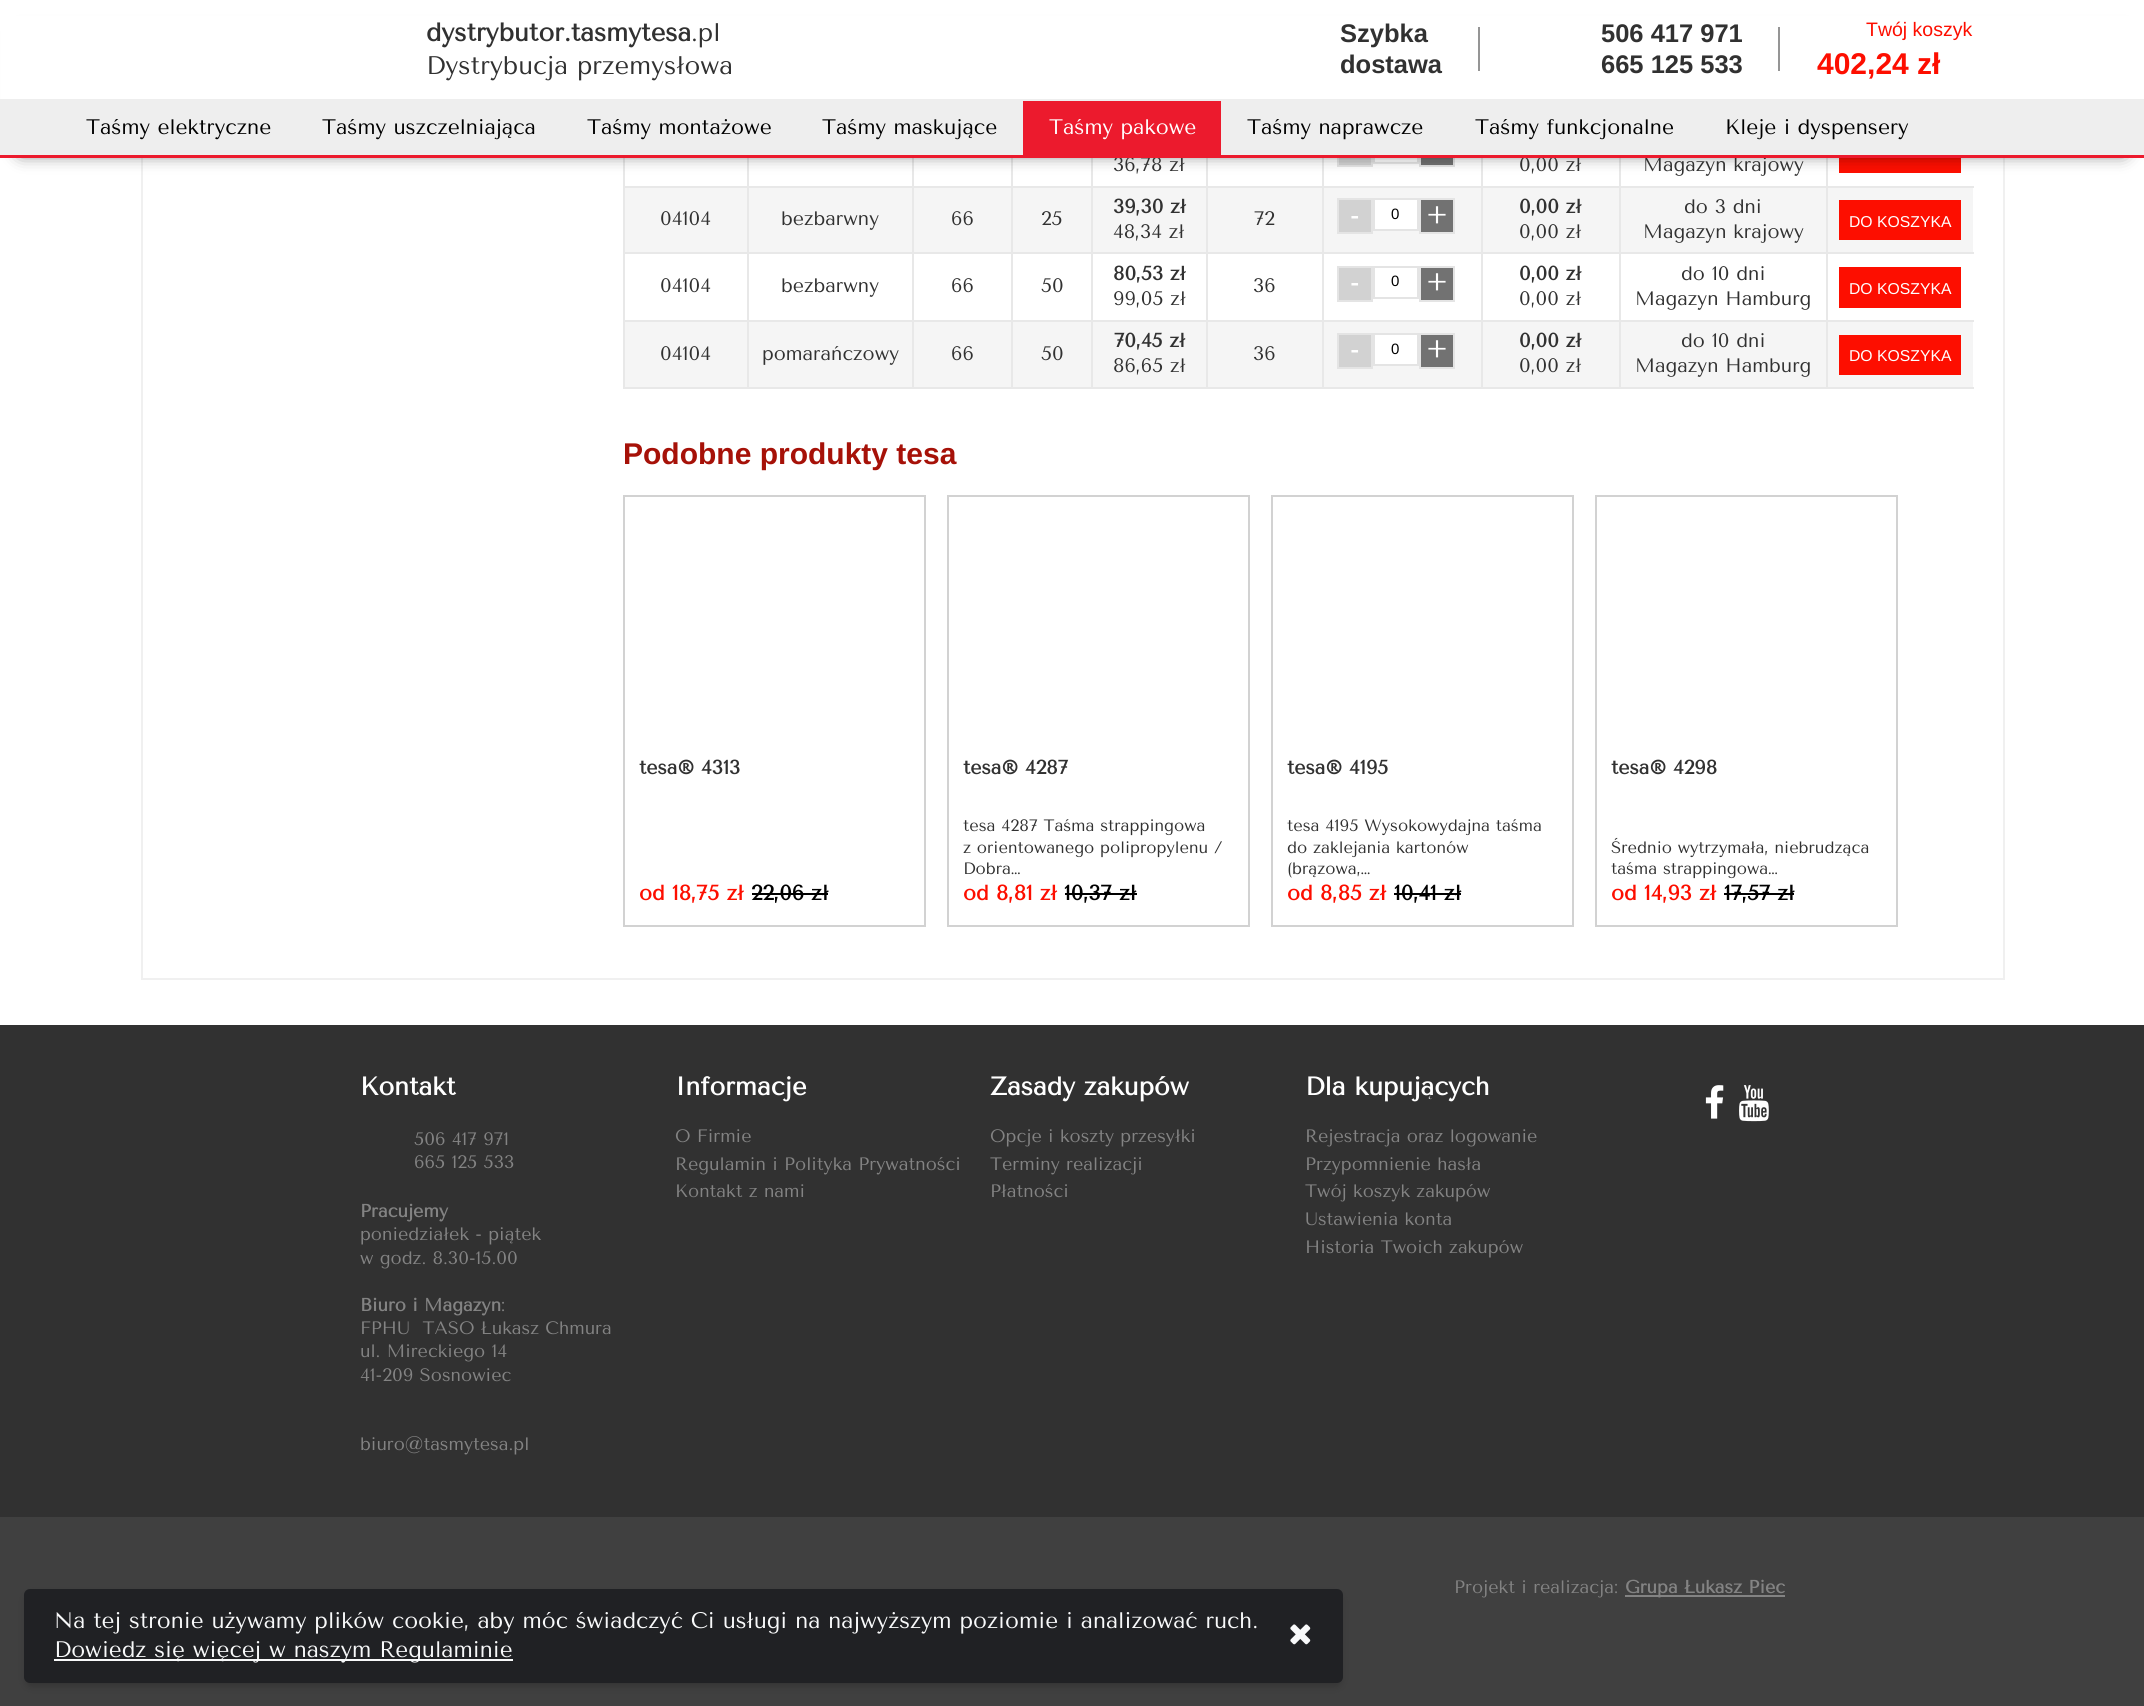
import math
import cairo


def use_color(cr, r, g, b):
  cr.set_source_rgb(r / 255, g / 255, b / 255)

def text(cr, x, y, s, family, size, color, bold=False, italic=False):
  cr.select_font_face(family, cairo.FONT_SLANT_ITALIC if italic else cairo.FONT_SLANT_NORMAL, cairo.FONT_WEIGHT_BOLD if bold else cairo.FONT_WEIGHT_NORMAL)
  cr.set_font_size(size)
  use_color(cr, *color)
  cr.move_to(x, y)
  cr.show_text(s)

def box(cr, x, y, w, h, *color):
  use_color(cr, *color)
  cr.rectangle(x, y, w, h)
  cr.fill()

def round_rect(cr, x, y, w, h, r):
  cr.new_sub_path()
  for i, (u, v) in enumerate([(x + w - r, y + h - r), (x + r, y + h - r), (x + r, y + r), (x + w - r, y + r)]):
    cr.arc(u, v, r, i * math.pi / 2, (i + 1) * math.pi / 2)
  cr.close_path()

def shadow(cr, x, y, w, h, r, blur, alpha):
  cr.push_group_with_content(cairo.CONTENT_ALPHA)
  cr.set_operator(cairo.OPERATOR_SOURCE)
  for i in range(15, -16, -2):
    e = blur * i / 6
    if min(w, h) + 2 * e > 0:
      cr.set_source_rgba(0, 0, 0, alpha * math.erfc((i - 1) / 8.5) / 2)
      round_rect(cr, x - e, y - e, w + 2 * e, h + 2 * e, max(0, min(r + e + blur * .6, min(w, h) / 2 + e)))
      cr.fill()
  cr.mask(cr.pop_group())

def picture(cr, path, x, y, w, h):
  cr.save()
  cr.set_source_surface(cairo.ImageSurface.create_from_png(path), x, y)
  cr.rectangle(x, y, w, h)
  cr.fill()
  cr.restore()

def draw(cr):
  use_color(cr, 255, 255, 255)
  cr.paint()
  box(cr, 2003, 158, 2, 822, 240, 240, 240)
  box(cr, 141, 978, 1863, 2, 240, 240, 240)
  box(cr, 141, 158, 2, 822, 240, 240, 240)
  box(cr, 1826, 387, 148, 2, 232, 232, 232)
  box(cr, 1826, 320, 2, 69, 232, 232, 232)
  box(cr, 1826, 320, 148, 2, 232, 232, 232)
  box(cr, 1826, 252, 2, 69, 232, 232, 232)
  box(cr, 1826, 252, 148, 2, 232, 232, 232)
  box(cr, 1826, 186, 2, 68, 232, 232, 232)
  box(cr, 1826, 186, 148, 2, 232, 232, 232)
  box(cr, 1826, 158, 2, 30, 232, 232, 232)
  box(cr, 1619, 387, 208, 2, 232, 232, 232)
  box(cr, 1619, 320, 2, 69, 232, 232, 232)
  box(cr, 1619, 320, 208, 2, 232, 232, 232)
  box(cr, 1619, 252, 2, 69, 232, 232, 232)
  box(cr, 1619, 252, 208, 2, 232, 232, 232)
  box(cr, 1619, 186, 2, 68, 232, 232, 232)
  box(cr, 1619, 186, 208, 2, 232, 232, 232)
  box(cr, 1619, 158, 2, 30, 232, 232, 232)
  box(cr, 1481, 387, 139, 2, 232, 232, 232)
  box(cr, 1481, 320, 2, 69, 232, 232, 232)
  box(cr, 1481, 320, 139, 2, 232, 232, 232)
  box(cr, 1481, 252, 2, 69, 232, 232, 232)
  box(cr, 1481, 252, 139, 2, 232, 232, 232)
  box(cr, 1481, 186, 2, 68, 232, 232, 232)
  box(cr, 1481, 186, 139, 2, 232, 232, 232)
  box(cr, 1481, 158, 2, 30, 232, 232, 232)
  box(cr, 1322, 387, 160, 2, 232, 232, 232)
  box(cr, 1322, 320, 2, 69, 232, 232, 232)
  box(cr, 1322, 320, 160, 2, 232, 232, 232)
  box(cr, 1322, 252, 2, 69, 232, 232, 232)
  box(cr, 1322, 252, 160, 2, 232, 232, 232)
  box(cr, 1322, 186, 2, 68, 232, 232, 232)
  box(cr, 1322, 186, 160, 2, 232, 232, 232)
  box(cr, 1322, 158, 2, 30, 232, 232, 232)
  box(cr, 1206, 387, 117, 2, 232, 232, 232)
  box(cr, 1206, 320, 2, 69, 232, 232, 232)
  box(cr, 1206, 320, 117, 2, 232, 232, 232)
  box(cr, 1206, 252, 2, 69, 232, 232, 232)
  box(cr, 1206, 252, 117, 2, 232, 232, 232)
  box(cr, 1206, 186, 2, 68, 232, 232, 232)
  box(cr, 1206, 186, 117, 2, 232, 232, 232)
  box(cr, 1206, 158, 2, 30, 232, 232, 232)
  box(cr, 1091, 387, 117, 2, 232, 232, 232)
  box(cr, 1091, 320, 2, 69, 232, 232, 232)
  box(cr, 1091, 320, 117, 2, 232, 232, 232)
  box(cr, 1091, 252, 2, 69, 232, 232, 232)
  box(cr, 1091, 252, 117, 2, 232, 232, 232)
  box(cr, 1091, 186, 2, 68, 232, 232, 232)
  box(cr, 1091, 186, 117, 2, 232, 232, 232)
  box(cr, 1091, 158, 2, 30, 232, 232, 232)
  box(cr, 1011, 387, 81, 2, 232, 232, 232)
  box(cr, 1011, 320, 2, 69, 232, 232, 232)
  box(cr, 1011, 320, 81, 2, 232, 232, 232)
  box(cr, 1011, 252, 2, 69, 232, 232, 232)
  box(cr, 1011, 252, 81, 2, 232, 232, 232)
  box(cr, 1011, 186, 2, 68, 232, 232, 232)
  box(cr, 1011, 186, 81, 2, 232, 232, 232)
  box(cr, 1011, 158, 2, 30, 232, 232, 232)
  box(cr, 912, 387, 101, 2, 232, 232, 232)
  box(cr, 912, 320, 2, 69, 232, 232, 232)
  box(cr, 912, 320, 101, 2, 232, 232, 232)
  box(cr, 912, 252, 2, 69, 232, 232, 232)
  box(cr, 912, 252, 101, 2, 232, 232, 232)
  box(cr, 912, 186, 2, 68, 232, 232, 232)
  box(cr, 912, 186, 101, 2, 232, 232, 232)
  box(cr, 912, 158, 2, 30, 232, 232, 232)
  box(cr, 747, 387, 167, 2, 232, 232, 232)
  box(cr, 747, 320, 2, 69, 232, 232, 232)
  box(cr, 747, 320, 167, 2, 232, 232, 232)
  box(cr, 747, 252, 2, 69, 232, 232, 232)
  box(cr, 747, 252, 167, 2, 232, 232, 232)
  box(cr, 747, 186, 2, 68, 232, 232, 232)
  box(cr, 747, 186, 167, 2, 232, 232, 232)
  box(cr, 747, 158, 2, 30, 232, 232, 232)
  box(cr, 623, 387, 126, 2, 232, 232, 232)
  box(cr, 623, 320, 2, 69, 232, 232, 232)
  box(cr, 623, 320, 126, 2, 232, 232, 232)
  box(cr, 623, 252, 2, 69, 232, 232, 232)
  box(cr, 623, 252, 126, 2, 232, 232, 232)
  box(cr, 623, 186, 2, 68, 232, 232, 232)
  box(cr, 623, 186, 126, 2, 232, 232, 232)
  box(cr, 623, 158, 2, 30, 232, 232, 232)
  box(cr, 1339, 158, 32, 7, 210, 210, 210)
  cr.rectangle(1338, 132, 34, 34)
  use_color(cr, 228, 228, 228)
  cr.stroke()
  cr.rectangle(1374, 132, 44, 31)
  cr.stroke()
  box(cr, 1421, 158, 32, 7, 114, 114, 114)
  cr.rectangle(1420, 132, 34, 34)
  use_color(cr, 228, 228, 228)
  cr.stroke()
  box(cr, 1839, 158, 122, 15, 253, 14, 0)
  use_color(cr, 0, 0, 0)
  shadow(cr, 21, 36, 2103, 116, 0, 9, 0.75)
  box(cr, 1, 16, 2143, 83, 255, 255, 255)
  box(cr, 1478, 27, 2, 44, 149, 149, 149)
  box(cr, 1778, 27, 2, 44, 149, 149, 149)
  box(cr, 0, 99, 2144, 56, 238, 238, 238)
  box(cr, 1023, 101, 198, 54, 236, 26, 45)
  box(cr, 625, 188, 122, 64, 245, 245, 245)
  box(cr, 749, 188, 163, 64, 245, 245, 245)
  box(cr, 914, 188, 97, 64, 245, 245, 245)
  box(cr, 1013, 188, 78, 64, 245, 245, 245)
  box(cr, 1093, 188, 113, 64, 245, 245, 245)
  box(cr, 1208, 188, 114, 64, 245, 245, 245)
  box(cr, 1324, 188, 157, 64, 245, 245, 245)
  use_color(cr, 210, 210, 210)
  cr.rectangle(1338, 199, 34, 34)
  cr.fill_preserve()
  use_color(cr, 228, 228, 228)
  cr.stroke()
  use_color(cr, 255, 255, 255)
  cr.rectangle(1374, 199, 44, 31)
  cr.fill_preserve()
  use_color(cr, 228, 228, 228)
  cr.stroke()
  use_color(cr, 114, 114, 114)
  cr.rectangle(1420, 199, 34, 34)
  cr.fill_preserve()
  use_color(cr, 228, 228, 228)
  cr.stroke()
  box(cr, 1483, 188, 136, 64, 245, 245, 245)
  box(cr, 1621, 188, 205, 64, 245, 245, 245)
  box(cr, 1828, 188, 145, 64, 245, 245, 245)
  box(cr, 1839, 200, 122, 40, 253, 14, 0)
  use_color(cr, 210, 210, 210)
  cr.rectangle(1338, 267, 34, 34)
  cr.fill_preserve()
  use_color(cr, 228, 228, 228)
  cr.stroke()
  cr.rectangle(1374, 267, 44, 31)
  cr.stroke()
  use_color(cr, 114, 114, 114)
  cr.rectangle(1420, 267, 34, 34)
  cr.fill_preserve()
  use_color(cr, 228, 228, 228)
  cr.stroke()
  box(cr, 1839, 267, 122, 41, 253, 14, 0)
  box(cr, 625, 322, 122, 65, 245, 245, 245)
  box(cr, 749, 322, 163, 65, 245, 245, 245)
  box(cr, 914, 322, 97, 65, 245, 245, 245)
  box(cr, 1013, 322, 78, 65, 245, 245, 245)
  box(cr, 1093, 322, 113, 65, 245, 245, 245)
  box(cr, 1208, 322, 114, 65, 245, 245, 245)
  box(cr, 1324, 322, 157, 65, 245, 245, 245)
  use_color(cr, 210, 210, 210)
  cr.rectangle(1338, 334, 34, 34)
  cr.fill_preserve()
  use_color(cr, 228, 228, 228)
  cr.stroke()
  use_color(cr, 255, 255, 255)
  cr.rectangle(1374, 334, 44, 31)
  cr.fill_preserve()
  use_color(cr, 228, 228, 228)
  cr.stroke()
  use_color(cr, 114, 114, 114)
  cr.rectangle(1420, 334, 34, 34)
  cr.fill_preserve()
  use_color(cr, 228, 228, 228)
  cr.stroke()
  box(cr, 1483, 322, 136, 65, 245, 245, 245)
  box(cr, 1621, 322, 205, 65, 245, 245, 245)
  box(cr, 1828, 322, 145, 65, 245, 245, 245)
  box(cr, 1839, 335, 122, 40, 253, 14, 0)
  cr.rectangle(624, 496, 301, 430)
  use_color(cr, 210, 210, 210)
  cr.stroke()
  box(cr, 752, 893, 76, 2, 0, 0, 0)
  cr.rectangle(948, 496, 301, 430)
  use_color(cr, 210, 210, 210)
  cr.stroke()
  box(cr, 1065, 893, 72, 2, 0, 0, 0)
  cr.rectangle(1272, 496, 301, 430)
  use_color(cr, 210, 210, 210)
  cr.stroke()
  box(cr, 1394, 893, 67, 2, 0, 0, 0)
  cr.rectangle(1596, 496, 301, 430)
  use_color(cr, 210, 210, 210)
  cr.stroke()
  box(cr, 1724, 893, 70, 2, 0, 0, 0)
  box(cr, 0, 1025, 2144, 492, 49, 49, 49)
  picture(cr, "img_01.png", 1705, 1085, 19, 34)
  picture(cr, "img_02.png", 1739, 1085, 30, 37)
  box(cr, 0, 1517, 2144, 189, 64, 64, 64)
  box(cr, 1625, 1595, 160, 2, 131, 131, 131)
  use_color(cr, 0, 0, 0)
  shadow(cr, 26, 1595, 1315, 91, 5, 4, 0.2)
  use_color(cr, 32, 33, 36)
  round_rect(cr, 24, 1589, 1319, 94, 6)
  cr.fill()
  box(cr, 54, 1659, 459, 2, 248, 249, 250)
  picture(cr, "img_03.png", 1290, 1624, 21, 21)
  text(cr, 426, 41, "dystrybutor.tasmytesa", "Tenor Sans", 25.5, (49, 49, 49), bold=True)
  text(cr, 691, 41, ".pl", "Tenor Sans", 25.5, (49, 49, 49))
  text(cr, 426, 74, "Dystrybucja przemysłowa", "Tenor Sans", 25.5, (49, 49, 49))
  text(cr, 1340, 42, "Szybka", "Arimo", 25.5, (49, 49, 49), bold=True)
  text(cr, 1340, 73, "dostawa", "Arimo", 25.5, (49, 49, 49), bold=True)
  text(cr, 1601, 42, "506 417 971", "Arimo", 25.5, (49, 49, 49), bold=True)
  text(cr, 1601, 73, "665 125 533", "Arimo", 25.5, (49, 49, 49), bold=True)
  text(cr, 1866, 36, "Twój koszyk", "Arimo", 19.5, (253, 14, 0))
  text(cr, 1817, 74, "402,24 zł", "Arimo", 30, (253, 14, 0), bold=True)
  text(cr, 86, 134, "Taśmy elektryczne", "Tenor Sans", 21, (0, 0, 0))
  text(cr, 322, 134, "Taśmy uszczelniająca", "Tenor Sans", 21, (0, 0, 0))
  text(cr, 587, 134, "Taśmy montażowe", "Tenor Sans", 21, (0, 0, 0))
  text(cr, 822, 134, "Taśmy maskujące", "Tenor Sans", 21, (0, 0, 0))
  text(cr, 1049, 134, "Taśmy pakowe", "Tenor Sans", 21, (255, 255, 255))
  text(cr, 1247, 134, "Taśmy naprawcze", "Tenor Sans", 21, (0, 0, 0))
  text(cr, 1475, 134, "Taśmy funkcjonalne", "Tenor Sans", 21, (0, 0, 0))
  text(cr, 1725, 134, "Kleje i dyspensery", "Tenor Sans", 21, (0, 0, 0))
  text(cr, 1113, 171, "36,78 zł", "Tenor Sans", 19.5, (49, 49, 49))
  text(cr, 1519, 171, "0,00 zł", "Tenor Sans", 19.5, (49, 49, 49))
  text(cr, 1643, 171, "Magazyn krajowy", "Tenor Sans", 19.5, (49, 49, 49))
  box(cr, 0, 155, 2144, 3, 236, 26, 45)
  text(cr, 660, 225, "04104", "Tenor Sans", 19.5, (49, 49, 49))
  text(cr, 781, 225, "bezbarwny", "Tenor Sans", 19.5, (49, 49, 49))
  text(cr, 951, 225, "66", "Tenor Sans", 19.5, (49, 49, 49))
  text(cr, 1041, 225, "25", "Tenor Sans", 19.5, (49, 49, 49))
  text(cr, 1113, 213, "39,30 zł", "Tenor Sans", 19.5, (49, 49, 49), bold=True)
  text(cr, 1113, 238, "48,34 zł", "Tenor Sans", 19.5, (49, 49, 49))
  text(cr, 1254, 225, "72", "Tenor Sans", 19.5, (49, 49, 49))
  text(cr, 1350, 224, "-", "Tenor Sans", 24, (255, 255, 255), bold=True)
  text(cr, 1391, 219, "0", "Liberation Sans", 15, (0, 0, 0))
  text(cr, 1426, 224, "+", "Tenor Sans", 24, (255, 255, 255), bold=True)
  text(cr, 1519, 213, "0,00 zł", "Tenor Sans", 19.5, (49, 49, 49), bold=True)
  text(cr, 1519, 238, "0,00 zł", "Tenor Sans", 19.5, (49, 49, 49))
  text(cr, 1684, 213, "do 3 dni", "Tenor Sans", 19.5, (49, 49, 49))
  text(cr, 1643, 238, "Magazyn krajowy", "Tenor Sans", 19.5, (49, 49, 49))
  text(cr, 1849, 227, "DO KOSZYKA", "Liberation Sans", 15.75, (255, 255, 255))
  text(cr, 660, 292, "04104", "Tenor Sans", 19.5, (49, 49, 49))
  text(cr, 781, 292, "bezbarwny", "Tenor Sans", 19.5, (49, 49, 49))
  text(cr, 951, 292, "66", "Tenor Sans", 19.5, (49, 49, 49))
  text(cr, 1041, 292, "50", "Tenor Sans", 19.5, (49, 49, 49))
  text(cr, 1113, 280, "80,53 zł", "Tenor Sans", 19.5, (49, 49, 49), bold=True)
  text(cr, 1113, 305, "99,05 zł", "Tenor Sans", 19.5, (49, 49, 49))
  text(cr, 1253, 292, "36", "Tenor Sans", 19.5, (49, 49, 49))
  text(cr, 1350, 291, "-", "Tenor Sans", 24, (255, 255, 255), bold=True)
  text(cr, 1391, 286, "0", "Liberation Sans", 15, (0, 0, 0))
  text(cr, 1426, 291, "+", "Tenor Sans", 24, (255, 255, 255), bold=True)
  text(cr, 1519, 280, "0,00 zł", "Tenor Sans", 19.5, (49, 49, 49), bold=True)
  text(cr, 1519, 305, "0,00 zł", "Tenor Sans", 19.5, (49, 49, 49))
  text(cr, 1681, 280, "do 10 dni", "Tenor Sans", 19.5, (49, 49, 49))
  text(cr, 1635, 305, "Magazyn Hamburg", "Tenor Sans", 19.5, (49, 49, 49))
  text(cr, 1849, 294, "DO KOSZYKA", "Liberation Sans", 15.75, (255, 255, 255))
  text(cr, 660, 360, "04104", "Tenor Sans", 19.5, (49, 49, 49))
  text(cr, 762, 360, "pomarańczowy", "Tenor Sans", 19.5, (49, 49, 49))
  text(cr, 951, 360, "66", "Tenor Sans", 19.5, (49, 49, 49))
  text(cr, 1041, 360, "50", "Tenor Sans", 19.5, (49, 49, 49))
  text(cr, 1114, 347, "70,45 zł", "Tenor Sans", 19.5, (49, 49, 49), bold=True)
  text(cr, 1113, 372, "86,65 zł", "Tenor Sans", 19.5, (49, 49, 49))
  text(cr, 1253, 360, "36", "Tenor Sans", 19.5, (49, 49, 49))
  text(cr, 1350, 358, "-", "Tenor Sans", 24, (255, 255, 255), bold=True)
  text(cr, 1391, 354, "0", "Liberation Sans", 15, (0, 0, 0))
  text(cr, 1426, 358, "+", "Tenor Sans", 24, (255, 255, 255), bold=True)
  text(cr, 1519, 347, "0,00 zł", "Tenor Sans", 19.5, (49, 49, 49), bold=True)
  text(cr, 1519, 372, "0,00 zł", "Tenor Sans", 19.5, (49, 49, 49))
  text(cr, 1681, 347, "do 10 dni", "Tenor Sans", 19.5, (49, 49, 49))
  text(cr, 1635, 372, "Magazyn Hamburg", "Tenor Sans", 19.5, (49, 49, 49))
  text(cr, 1849, 361, "DO KOSZYKA", "Liberation Sans", 15.75, (255, 255, 255))
  text(cr, 623, 464, "Podobne produkty tesa", "Arimo", 30, (166, 17, 8), bold=True)
  text(cr, 639, 774, "tesa® 4313", "Tenor Sans", 19.5, (49, 49, 49), bold=True)
  text(cr, 639, 900, "od 18,75 zł", "Tenor Sans", 21, (253, 14, 0), bold=True)
  text(cr, 751, 900, "22,06 zł", "Tenor Sans", 21, (0, 0, 0), bold=True)
  text(cr, 963, 774, "tesa® 4287", "Tenor Sans", 19.5, (49, 49, 49), bold=True)
  text(cr, 963, 831, "tesa 4287 Taśma strappingowa", "Tenor Sans", 16.5, (49, 49, 49))
  text(cr, 963, 853, "z orientowanego polipropylenu /", "Tenor Sans", 16.5, (49, 49, 49))
  text(cr, 963, 874, "Dobra…", "Tenor Sans", 16.5, (49, 49, 49))
  text(cr, 963, 900, "od 8,81 zł", "Tenor Sans", 21, (253, 14, 0), bold=True)
  text(cr, 1064, 900, "10,37 zł", "Tenor Sans", 21, (0, 0, 0), bold=True)
  text(cr, 1287, 774, "tesa® 4195", "Tenor Sans", 19.5, (49, 49, 49), bold=True)
  text(cr, 1287, 831, "tesa 4195 Wysokowydajna taśma", "Tenor Sans", 16.5, (49, 49, 49))
  text(cr, 1287, 853, "do zaklejania kartonów", "Tenor Sans", 16.5, (49, 49, 49))
  text(cr, 1287, 874, "(brązowa,…", "Tenor Sans", 16.5, (49, 49, 49))
  text(cr, 1287, 900, "od 8,85 zł", "Tenor Sans", 21, (253, 14, 0), bold=True)
  text(cr, 1394, 900, "10,41 zł", "Tenor Sans", 21, (0, 0, 0), bold=True)
  text(cr, 1611, 774, "tesa® 4298", "Tenor Sans", 19.5, (49, 49, 49), bold=True)
  text(cr, 1611, 853, "Średnio wytrzymała, niebrudząca", "Tenor Sans", 16.5, (49, 49, 49))
  text(cr, 1611, 874, "taśma strappingowa…", "Tenor Sans", 16.5, (49, 49, 49))
  text(cr, 1611, 900, "od 14,93 zł", "Tenor Sans", 21, (253, 14, 0), bold=True)
  text(cr, 1724, 900, "17,57 zł", "Tenor Sans", 21, (0, 0, 0), bold=True)
  text(cr, 360, 1095, "Kontakt", "Tenor Sans", 25.5, (255, 255, 255), bold=True)
  text(cr, 414, 1145, "506 417 971", "Tenor Sans", 18, (131, 131, 131))
  text(cr, 414, 1168, "665 125 533", "Tenor Sans", 18, (131, 131, 131))
  text(cr, 360, 1217, "Pracujemy", "Tenor Sans", 18, (131, 131, 131), bold=True)
  text(cr, 360, 1240, "poniedziałek - piątek", "Tenor Sans", 18, (131, 131, 131))
  text(cr, 360, 1264, "w godz. 8.30-15.00", "Tenor Sans", 18, (131, 131, 131))
  text(cr, 360, 1311, "Biuro i Magazyn", "Tenor Sans", 18, (131, 131, 131), bold=True)
  text(cr, 501, 1311, ":", "Tenor Sans", 18, (131, 131, 131))
  text(cr, 360, 1334, "FPHU  TASO Łukasz Chmura", "Tenor Sans", 18, (131, 131, 131))
  text(cr, 360, 1357, "ul. Mireckiego 14", "Tenor Sans", 18, (131, 131, 131))
  text(cr, 360, 1381, "41-209 Sosnowiec", "Tenor Sans", 18, (131, 131, 131))
  text(cr, 360, 1450, "biuro@tasmytesa.pl", "Tenor Sans", 18, (131, 131, 131))
  text(cr, 675, 1095, "Informacje", "Tenor Sans", 25.5, (255, 255, 255), bold=True)
  text(cr, 675, 1142, "O Firmie", "Tenor Sans", 18, (131, 131, 131))
  text(cr, 675, 1170, "Regulamin i Polityka Prywatności", "Tenor Sans", 18, (131, 131, 131))
  text(cr, 675, 1197, "Kontakt z nami", "Tenor Sans", 18, (131, 131, 131))
  text(cr, 990, 1095, "Zasady zakupów", "Tenor Sans", 25.5, (255, 255, 255), bold=True)
  text(cr, 990, 1142, "Opcje i koszty przesyłki", "Tenor Sans", 18, (131, 131, 131))
  text(cr, 990, 1170, "Terminy realizacji", "Tenor Sans", 18, (131, 131, 131))
  text(cr, 990, 1197, "Płatności", "Tenor Sans", 18, (131, 131, 131))
  text(cr, 1305, 1095, "Dla kupujących", "Tenor Sans", 25.5, (255, 255, 255), bold=True)
  text(cr, 1305, 1142, "Rejestracja oraz logowanie", "Tenor Sans", 18, (131, 131, 131))
  text(cr, 1305, 1170, "Przypomnienie hasła", "Tenor Sans", 18, (131, 131, 131))
  text(cr, 1305, 1197, "Twój koszyk zakupów", "Tenor Sans", 18, (131, 131, 131))
  text(cr, 1305, 1225, "Ustawienia konta", "Tenor Sans", 18, (131, 131, 131))
  text(cr, 1305, 1253, "Historia Twoich zakupów", "Tenor Sans", 18, (131, 131, 131))
  text(cr, 1454, 1593, "Projekt i realizacja:", "Tenor Sans", 18, (131, 131, 131))
  text(cr, 1625, 1593, "Grupa Łukasz Piec", "Tenor Sans", 18, (131, 131, 131), bold=True)
  text(cr, 54, 1628, "Na tej stronie używamy plików cookie, aby móc świadczyć Ci usługi na najwyższym poziomie i analizować ruch.", "Tenor Sans", 22.5, (248, 249, 250))
  text(cr, 54, 1657, "Dowiedz się więcej w naszym Regulaminie", "Tenor Sans", 22.5, (248, 249, 250))


surface = cairo.ImageSurface(cairo.FORMAT_RGB24, 2144, 1706)
cr = cairo.Context(surface)
options = cairo.FontOptions()
options.set_hint_metrics(cairo.HINT_METRICS_OFF)
options.set_hint_style(cairo.HINT_STYLE_NONE)
cr.set_font_options(options)
cr.set_miter_limit(4)
draw(cr)
surface.write_to_png("out.png")
